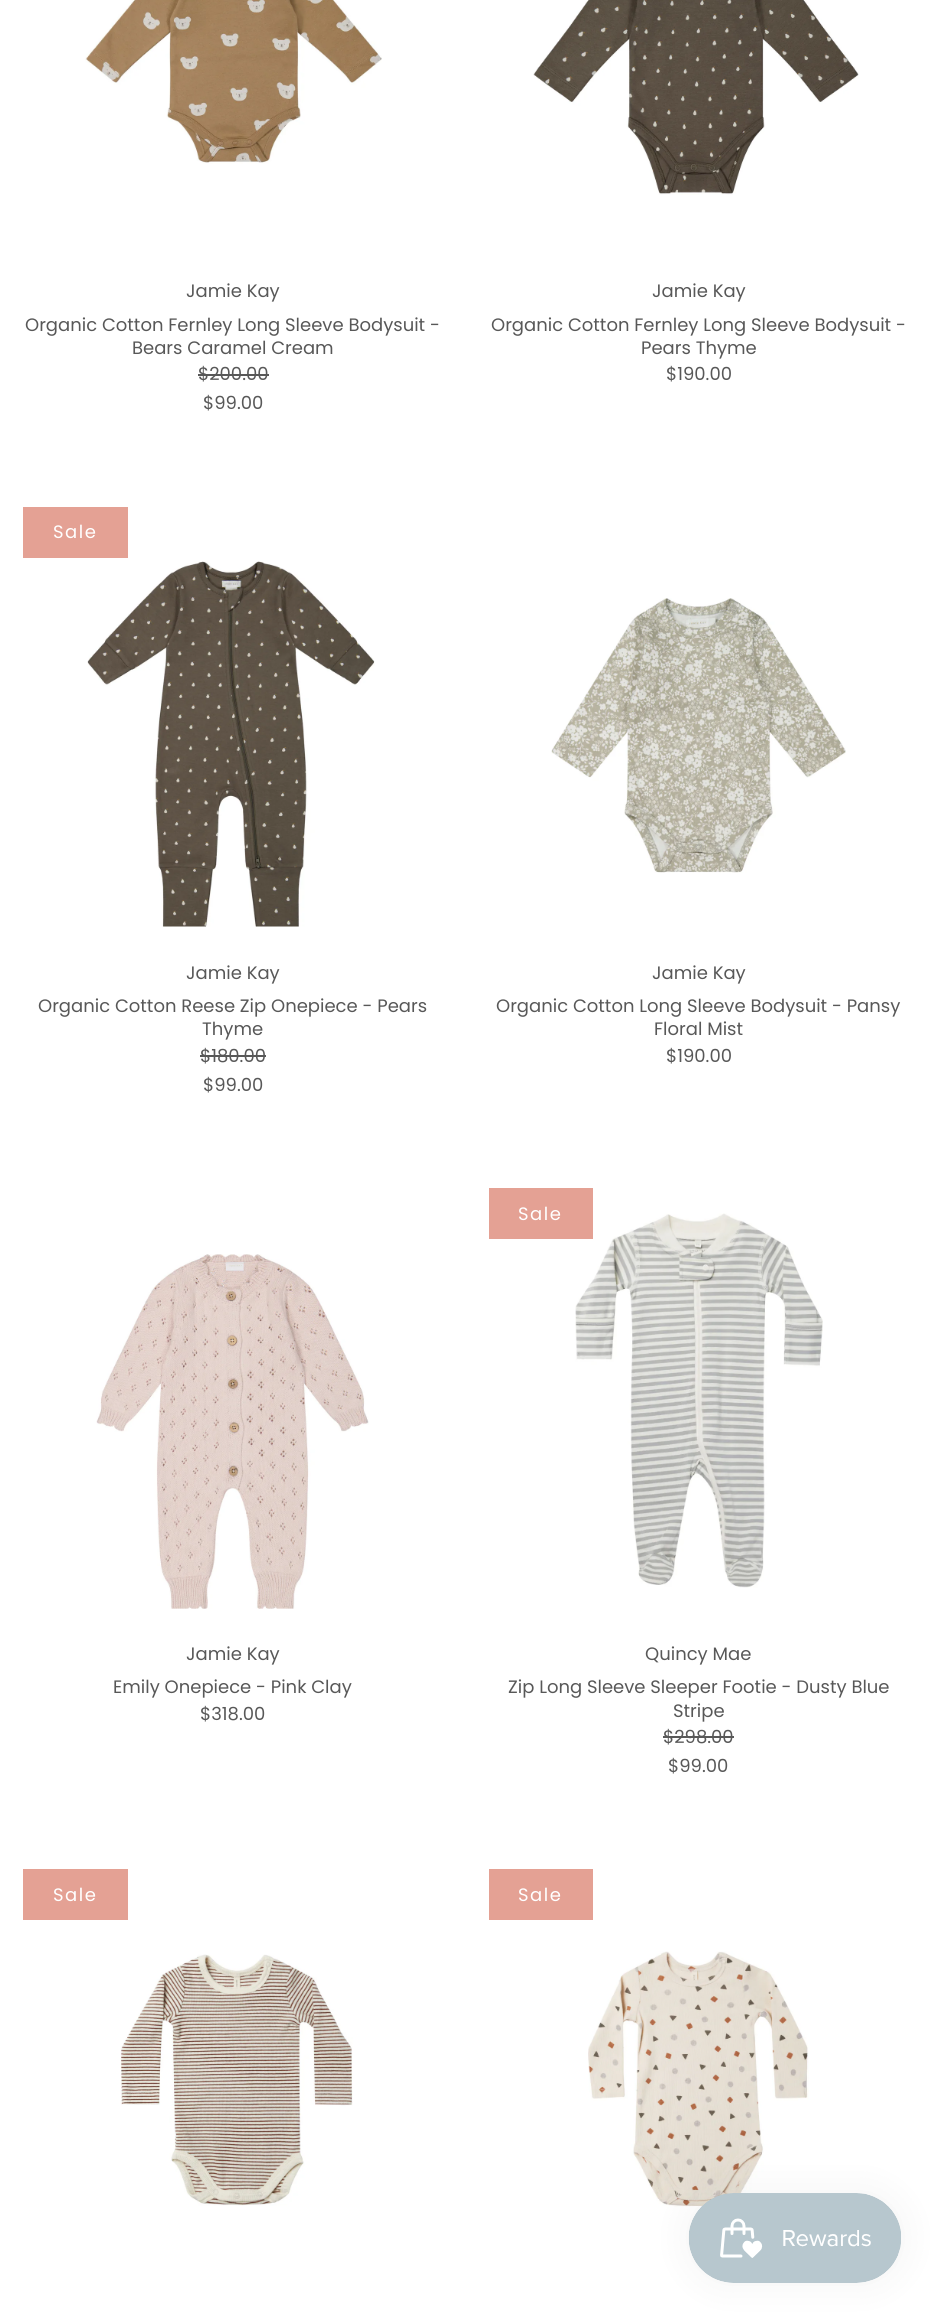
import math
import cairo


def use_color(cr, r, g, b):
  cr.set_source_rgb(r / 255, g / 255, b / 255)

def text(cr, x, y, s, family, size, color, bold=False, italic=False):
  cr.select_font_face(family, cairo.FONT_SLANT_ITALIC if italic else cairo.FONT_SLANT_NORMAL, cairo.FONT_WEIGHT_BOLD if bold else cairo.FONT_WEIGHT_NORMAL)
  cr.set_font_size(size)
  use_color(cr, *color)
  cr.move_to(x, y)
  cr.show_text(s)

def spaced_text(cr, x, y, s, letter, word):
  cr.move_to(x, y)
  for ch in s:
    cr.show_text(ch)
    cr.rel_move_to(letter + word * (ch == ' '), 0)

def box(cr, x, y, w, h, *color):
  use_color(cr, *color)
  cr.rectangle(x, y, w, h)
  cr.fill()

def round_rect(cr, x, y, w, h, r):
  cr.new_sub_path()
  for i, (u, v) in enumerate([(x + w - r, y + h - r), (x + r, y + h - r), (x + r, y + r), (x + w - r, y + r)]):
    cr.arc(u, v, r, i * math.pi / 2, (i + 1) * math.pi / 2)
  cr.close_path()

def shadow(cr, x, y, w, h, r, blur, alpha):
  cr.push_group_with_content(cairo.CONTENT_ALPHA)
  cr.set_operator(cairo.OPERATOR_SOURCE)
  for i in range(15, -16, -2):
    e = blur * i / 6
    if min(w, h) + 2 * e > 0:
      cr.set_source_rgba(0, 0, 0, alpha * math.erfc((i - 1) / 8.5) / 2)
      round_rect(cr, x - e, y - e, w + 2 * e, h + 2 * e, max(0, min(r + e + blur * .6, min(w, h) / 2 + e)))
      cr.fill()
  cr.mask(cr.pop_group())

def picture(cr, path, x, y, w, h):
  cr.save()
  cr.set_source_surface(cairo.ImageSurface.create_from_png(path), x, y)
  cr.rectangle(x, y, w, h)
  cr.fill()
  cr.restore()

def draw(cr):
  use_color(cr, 255, 255, 255)
  cr.paint()
  picture(cr, "img_01.png", 85, 0, 297, 164)
  box(cr, 198, 374, 71, 2, 88, 88, 88)
  picture(cr, "img_02.png", 533, 0, 326, 195)
  box(cr, 23, 507, 105, 51, 228, 161, 148)
  picture(cr, "img_03.png", 87, 561, 288, 366)
  box(cr, 200, 1055, 66, 2, 88, 88, 88)
  picture(cr, "img_04.png", 551, 598, 295, 275)
  picture(cr, "img_05.png", 96, 1254, 273, 355)
  picture(cr, "img_06.png", 575, 1213, 248, 375)
  box(cr, 489, 1188, 104, 51, 228, 161, 148)
  box(cr, 663, 1736, 71, 2, 88, 88, 88)
  box(cr, 23, 1869, 105, 51, 228, 161, 148)
  picture(cr, "img_07.png", 120, 1954, 233, 252)
  box(cr, 489, 1869, 104, 51, 228, 161, 148)
  picture(cr, "img_08.png", 588, 1951, 221, 256)
  use_color(cr, 0, 0, 0)
  shadow(cr, 689, 2193, 213, 90, 45, 19, 0.05)
  picture(cr, "img_09.png", 688, 2193, 213, 90)
  text(cr, 186, 297, "Jamie Kay", "Poppins", 18, (88, 88, 88))
  text(cr, 25, 331, "Organic Cotton Fernley Long Sleeve Bodysuit -", "Poppins", 18, (88, 88, 88))
  text(cr, 132, 354, "Bears Caramel Cream", "Poppins", 18, (88, 88, 88))
  text(cr, 198, 380, "$200.00", "Poppins", 18, (88, 88, 88))
  text(cr, 203, 409, "$99.00", "Poppins", 18, (88, 88, 88))
  text(cr, 652, 297, "Jamie Kay", "Poppins", 18, (88, 88, 88))
  text(cr, 491, 331, "Organic Cotton Fernley Long Sleeve Bodysuit -", "Poppins", 18, (88, 88, 88))
  text(cr, 641, 354, "Pears Thyme", "Poppins", 18, (88, 88, 88))
  text(cr, 666, 380, "$190.00", "Poppins", 18, (88, 88, 88))
  use_color(cr, 255, 255, 255)
  spaced_text(cr, 53, 538, "Sale", 1.5, 0)
  text(cr, 186, 979, "Jamie Kay", "Poppins", 18, (88, 88, 88))
  text(cr, 38, 1012, "Organic Cotton Reese Zip Onepiece - Pears", "Poppins", 18, (88, 88, 88))
  text(cr, 202, 1035, "Thyme", "Poppins", 18, (88, 88, 88))
  text(cr, 200, 1062, "$180.00", "Poppins", 18, (88, 88, 88))
  text(cr, 203, 1091, "$99.00", "Poppins", 18, (88, 88, 88))
  text(cr, 652, 979, "Jamie Kay", "Poppins", 18, (88, 88, 88))
  text(cr, 496, 1012, "Organic Cotton Long Sleeve Bodysuit - Pansy", "Poppins", 18, (88, 88, 88))
  text(cr, 654, 1035, "Floral Mist", "Poppins", 18, (88, 88, 88))
  text(cr, 666, 1062, "$190.00", "Poppins", 18, (88, 88, 88))
  text(cr, 186, 1660, "Jamie Kay", "Poppins", 18, (88, 88, 88))
  text(cr, 113, 1693, "Emily Onepiece - Pink Clay", "Poppins", 18, (88, 88, 88))
  text(cr, 200, 1720, "$318.00", "Poppins", 18, (88, 88, 88))
  use_color(cr, 255, 255, 255)
  spaced_text(cr, 518, 1220, "Sale", 1.5, 0)
  text(cr, 645, 1660, "Quincy Mae", "Poppins", 18, (88, 88, 88))
  text(cr, 508, 1693, "Zip Long Sleeve Sleeper Footie - Dusty Blue", "Poppins", 18, (88, 88, 88))
  text(cr, 673, 1717, "Stripe", "Poppins", 18, (88, 88, 88))
  text(cr, 663, 1743, "$298.00", "Poppins", 18, (88, 88, 88))
  text(cr, 668, 1772, "$99.00", "Poppins", 18, (88, 88, 88))
  use_color(cr, 255, 255, 255)
  spaced_text(cr, 53, 1901, "Sale", 1.5, 0)
  spaced_text(cr, 518, 1901, "Sale", 1.5, 0)


surface = cairo.ImageSurface(cairo.FORMAT_RGB24, 931, 2312)
cr = cairo.Context(surface)
options = cairo.FontOptions()
options.set_hint_metrics(cairo.HINT_METRICS_OFF)
options.set_hint_style(cairo.HINT_STYLE_NONE)
cr.set_font_options(options)
cr.set_miter_limit(4)
draw(cr)
surface.write_to_png("out.png")
